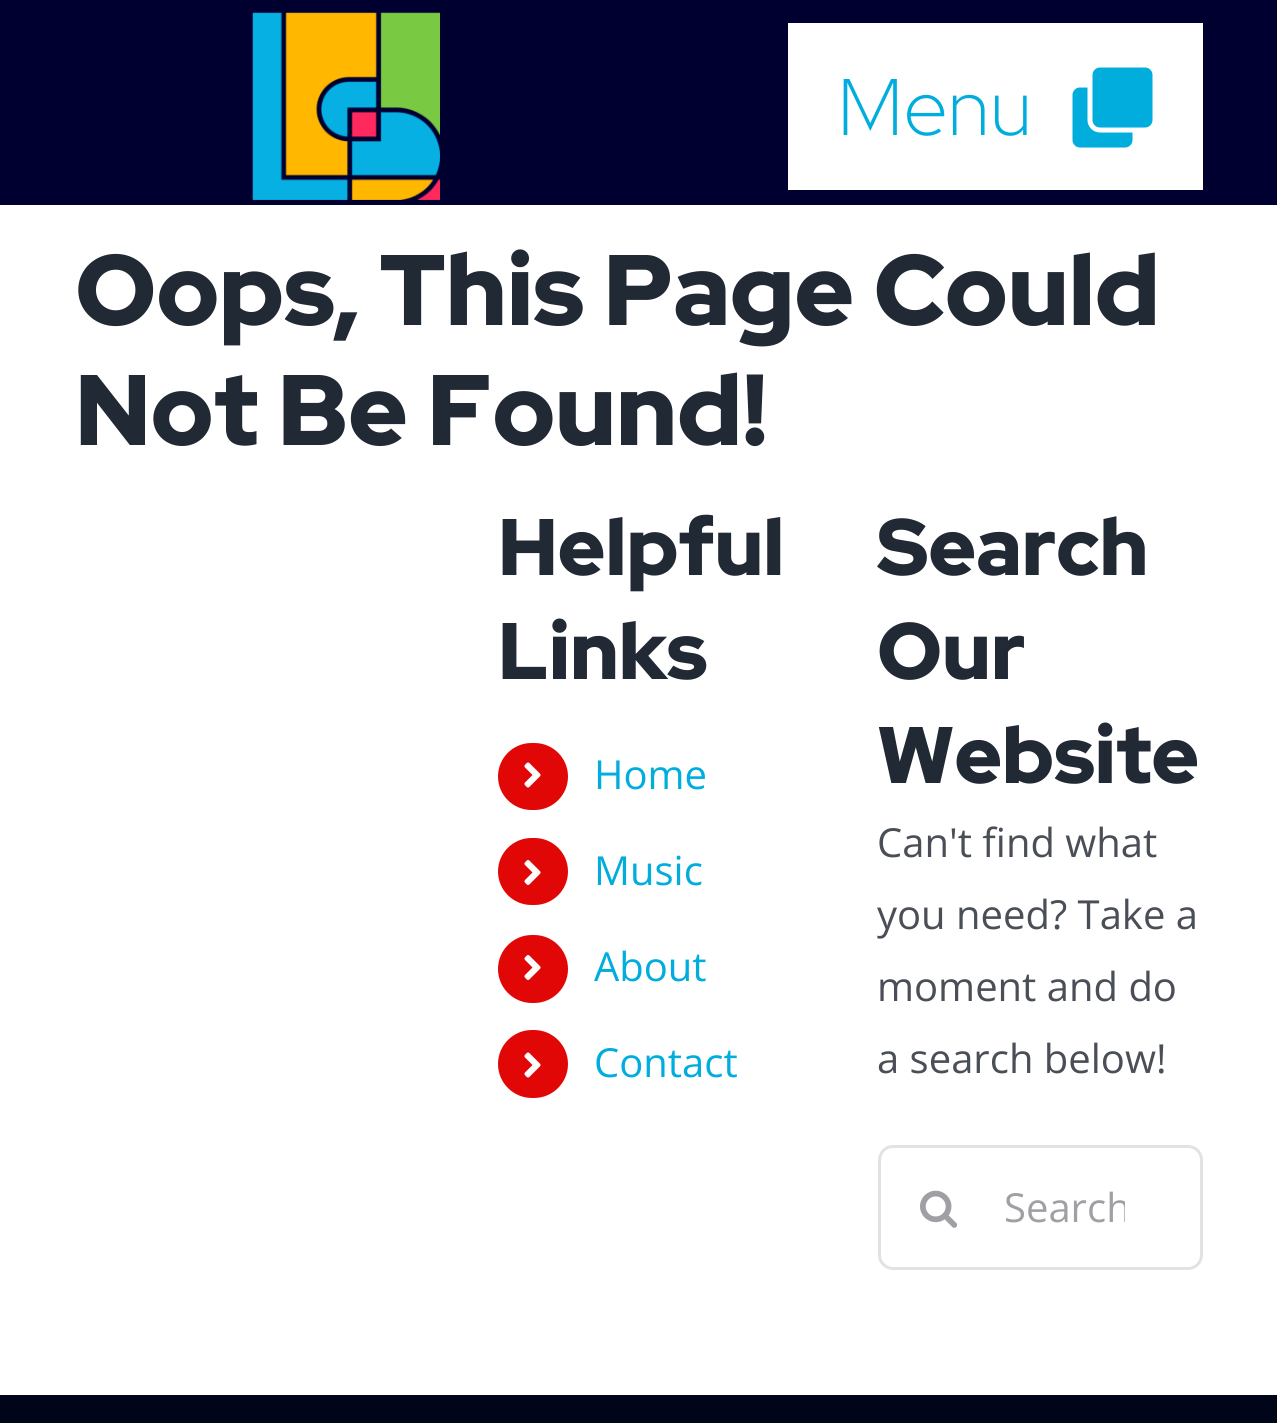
import math
import cairo


def use_color(cr, r, g, b):
  cr.set_source_rgb(r / 255, g / 255, b / 255)

def text(cr, x, y, s, family, size, color, bold=False, italic=False):
  cr.select_font_face(family, cairo.FONT_SLANT_ITALIC if italic else cairo.FONT_SLANT_NORMAL, cairo.FONT_WEIGHT_BOLD if bold else cairo.FONT_WEIGHT_NORMAL)
  cr.set_font_size(size)
  use_color(cr, *color)
  cr.move_to(x, y)
  cr.show_text(s)

def box(cr, x, y, w, h, *color):
  use_color(cr, *color)
  cr.rectangle(x, y, w, h)
  cr.fill()

def round_rect(cr, x, y, w, h, r):
  cr.new_sub_path()
  for i, (u, v) in enumerate([(x + w - r, y + h - r), (x + r, y + h - r), (x + r, y + r), (x + w - r, y + r)]):
    cr.arc(u, v, r, i * math.pi / 2, (i + 1) * math.pi / 2)
  cr.close_path()

def picture(cr, path, x, y, w, h):
  cr.save()
  cr.set_source_surface(cairo.ImageSurface.create_from_png(path), x, y)
  cr.rectangle(x, y, w, h)
  cr.fill()
  cr.restore()

def draw(cr):
  use_color(cr, 255, 255, 255)
  cr.paint()
  box(cr, 0, 0, 1277, 205, 0, 0, 48)
  picture(cr, "img_01.png", 252, 12, 188, 188)
  box(cr, 788, 23, 415, 167, 255, 255, 255)
  picture(cr, "img_02.png", 1072, 67, 81, 81)
  use_color(cr, 225, 7, 7)
  round_rect(cr, 498, 743, 70, 67, 33.5)
  cr.fill()
  picture(cr, "img_03.png", 524, 762, 17, 26)
  round_rect(cr, 498, 838, 70, 67, 33.5)
  cr.fill()
  picture(cr, "img_04.png", 524, 860, 17, 25)
  round_rect(cr, 498, 935, 70, 68, 34)
  cr.fill()
  picture(cr, "img_04.png", 524, 955, 17, 25)
  round_rect(cr, 498, 1030, 70, 68, 34)
  cr.fill()
  picture(cr, "img_03.png", 524, 1052, 17, 26)
  round_rect(cr, 879.5, 1146.5, 322, 122, 13.5)
  use_color(cr, 226, 226, 226)
  cr.set_line_width(3)
  cr.stroke()
  picture(cr, "img_05.png", 920, 1190, 38, 38)
  box(cr, 0, 1395, 1277, 28, 0, 5, 25)
  text(cr, 837, 135, "Menu", "Red Hat Display Light", 80, (0, 173, 221))
  text(cr, 75, 325, "Oops, This Page Could", "Red Hat Display Black", 100, (33, 41, 52))
  text(cr, 75, 445, "Not Be Found!", "Red Hat Display Black", 100, (33, 41, 52))
  text(cr, 498, 575, "Helpful", "Red Hat Display Black", 80, (33, 41, 52))
  text(cr, 498, 679, "Links", "Red Hat Display Black", 80, (33, 41, 52))
  text(cr, 594, 789, "Home", "Open Sans", 40, (0, 173, 221))
  text(cr, 594, 885, "Music", "Open Sans", 40, (0, 173, 221))
  text(cr, 594, 981, "About", "Open Sans", 40, (0, 173, 221))
  text(cr, 594, 1077, "Contact", "Open Sans", 40, (0, 173, 221))
  text(cr, 877, 575, "Search", "Red Hat Display Black", 80, (33, 41, 52))
  text(cr, 877, 679, "Our", "Red Hat Display Black", 80, (33, 41, 52))
  text(cr, 877, 783, "Website", "Red Hat Display Black", 80, (33, 41, 52))
  text(cr, 877, 857, "Can't find what", "Open Sans", 40, (74, 78, 87))
  text(cr, 877, 929, "you need? Take a", "Open Sans", 40, (74, 78, 87))
  text(cr, 877, 1001, "moment and do", "Open Sans", 40, (74, 78, 87))
  text(cr, 877, 1073, "a search below!", "Open Sans", 40, (74, 78, 87))
  cr.save()
  cr.rectangle(1005, 1180, 120, 55)
  cr.clip()
  text(cr, 1004, 1222, "Search", "Open Sans", 40, (158, 160, 164))
  cr.restore()


surface = cairo.ImageSurface(cairo.FORMAT_RGB24, 1277, 1423)
cr = cairo.Context(surface)
options = cairo.FontOptions()
options.set_hint_metrics(cairo.HINT_METRICS_OFF)
options.set_hint_style(cairo.HINT_STYLE_NONE)
cr.set_font_options(options)
cr.set_miter_limit(4)
draw(cr)
surface.write_to_png("out.png")
